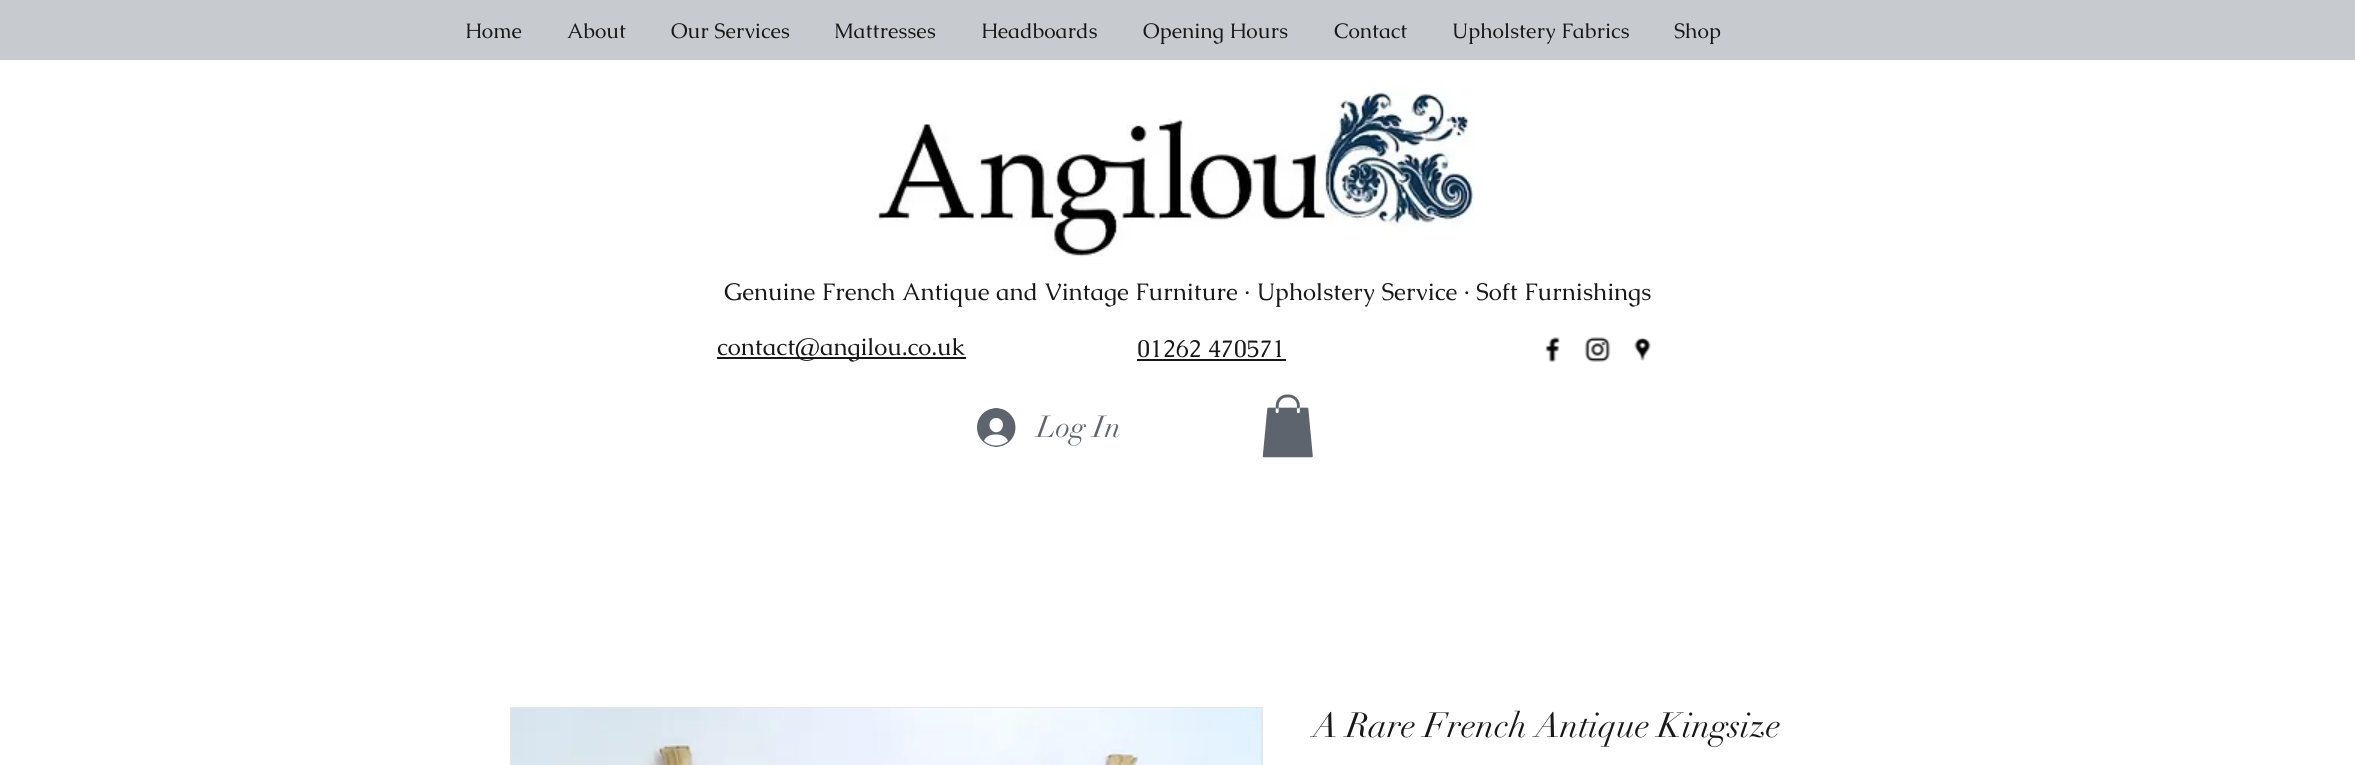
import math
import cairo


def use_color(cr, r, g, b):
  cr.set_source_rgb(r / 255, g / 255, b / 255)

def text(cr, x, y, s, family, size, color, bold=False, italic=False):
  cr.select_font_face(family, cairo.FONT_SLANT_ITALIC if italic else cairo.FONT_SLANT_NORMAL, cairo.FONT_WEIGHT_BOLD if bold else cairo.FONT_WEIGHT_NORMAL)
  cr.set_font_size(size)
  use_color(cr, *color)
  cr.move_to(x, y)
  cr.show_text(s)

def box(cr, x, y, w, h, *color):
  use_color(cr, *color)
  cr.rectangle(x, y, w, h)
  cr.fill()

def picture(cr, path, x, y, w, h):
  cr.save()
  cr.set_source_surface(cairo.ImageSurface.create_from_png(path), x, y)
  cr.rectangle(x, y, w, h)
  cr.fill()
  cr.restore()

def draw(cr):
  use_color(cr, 255, 255, 255)
  cr.paint()
  box(cr, 0, 0, 2355, 60, 199, 202, 207)
  picture(cr, "img_01.png", 874, 88, 601, 169)
  box(cr, 717, 357, 249, 2, 24, 24, 24)
  box(cr, 1137, 359, 149, 2, 24, 24, 24)
  picture(cr, "img_02.png", 1545, 337, 15, 25)
  picture(cr, "img_03.png", 1584, 337, 27, 25)
  picture(cr, "img_04.png", 1634, 337, 17, 24)
  picture(cr, "img_05.png", 977, 408, 39, 39)
  picture(cr, "img_06.png", 1262, 394, 51, 64)
  cr.rectangle(511, 708, 751, 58)
  use_color(cr, 230, 230, 230)
  cr.stroke()
  picture(cr, "img_07.png", 511, 708, 750, 57)
  text(cr, 465, 38, "Home", "Caudex", 21, (24, 24, 24))
  text(cr, 567, 38, "About", "Caudex", 21, (24, 24, 24))
  text(cr, 671, 38, "Our Services", "Caudex", 21, (24, 24, 24))
  text(cr, 834, 38, "Mattresses", "Caudex", 21, (24, 24, 24))
  text(cr, 981, 38, "Headboards", "Caudex", 21, (24, 24, 24))
  text(cr, 1143, 38, "Opening Hours", "Caudex", 21, (24, 24, 24))
  text(cr, 1334, 38, "Contact", "Caudex", 21, (24, 24, 24))
  text(cr, 1452, 38, "Upholstery Fabrics", "Caudex", 21, (24, 24, 24))
  text(cr, 1674, 38, "Shop", "Caudex", 21, (24, 24, 24))
  text(cr, 724, 300, "Genuine French Antique and Vintage Furniture · Upholstery Service · Soft Furnishings", "Caudex", 24, (24, 24, 24))
  text(cr, 717, 355, "contact@angilou.co.uk", "Caudex", 24, (24, 24, 24))
  text(cr, 1137, 357, "01262 470571", "Caudex", 24, (24, 24, 24))
  text(cr, 1037, 437, "Log In", "didot", 30, (93, 100, 109))
  text(cr, 1313, 737, "A Rare French Antique Kingsize", "didot", 34.5, (24, 24, 24))


surface = cairo.ImageSurface(cairo.FORMAT_RGB24, 2355, 765)
cr = cairo.Context(surface)
options = cairo.FontOptions()
options.set_hint_metrics(cairo.HINT_METRICS_OFF)
options.set_hint_style(cairo.HINT_STYLE_NONE)
cr.set_font_options(options)
cr.set_miter_limit(4)
draw(cr)
surface.write_to_png("out.png")
